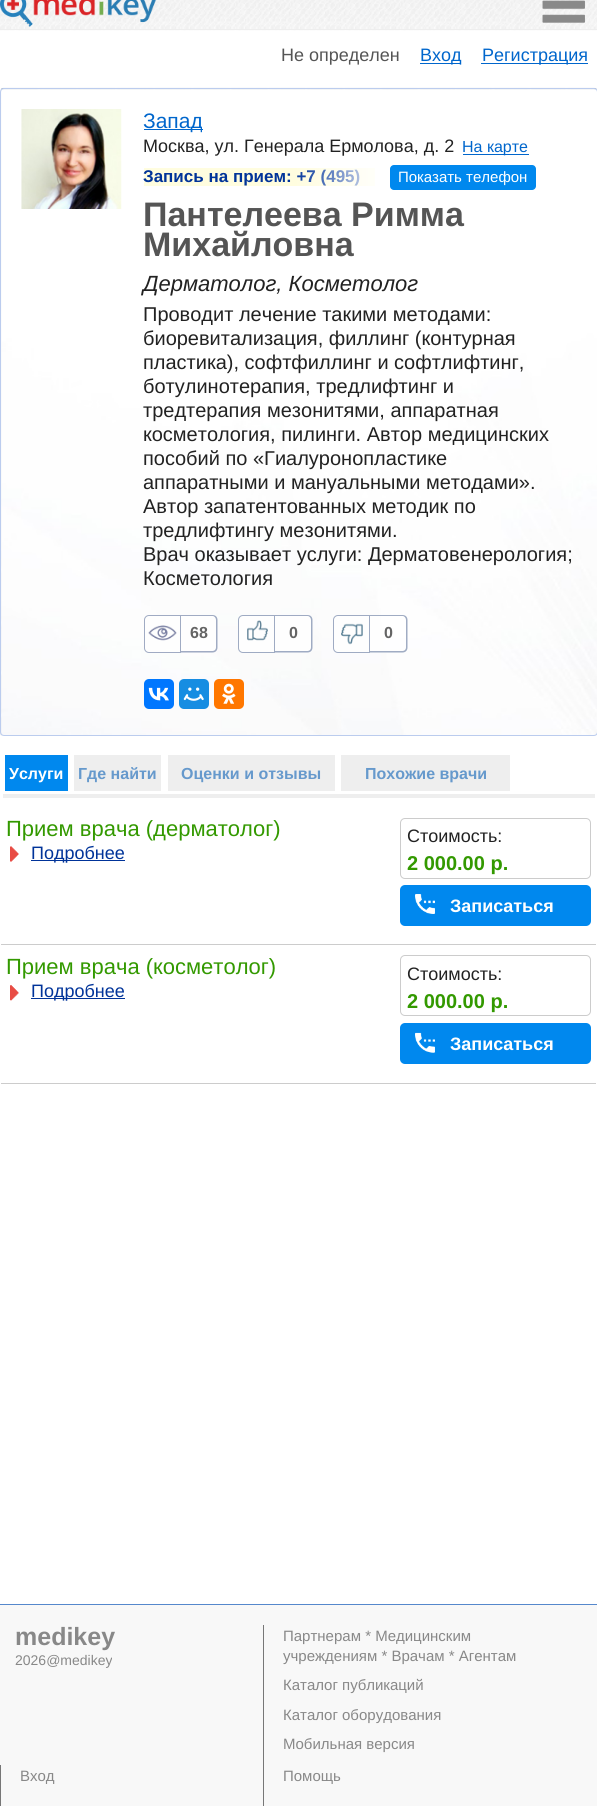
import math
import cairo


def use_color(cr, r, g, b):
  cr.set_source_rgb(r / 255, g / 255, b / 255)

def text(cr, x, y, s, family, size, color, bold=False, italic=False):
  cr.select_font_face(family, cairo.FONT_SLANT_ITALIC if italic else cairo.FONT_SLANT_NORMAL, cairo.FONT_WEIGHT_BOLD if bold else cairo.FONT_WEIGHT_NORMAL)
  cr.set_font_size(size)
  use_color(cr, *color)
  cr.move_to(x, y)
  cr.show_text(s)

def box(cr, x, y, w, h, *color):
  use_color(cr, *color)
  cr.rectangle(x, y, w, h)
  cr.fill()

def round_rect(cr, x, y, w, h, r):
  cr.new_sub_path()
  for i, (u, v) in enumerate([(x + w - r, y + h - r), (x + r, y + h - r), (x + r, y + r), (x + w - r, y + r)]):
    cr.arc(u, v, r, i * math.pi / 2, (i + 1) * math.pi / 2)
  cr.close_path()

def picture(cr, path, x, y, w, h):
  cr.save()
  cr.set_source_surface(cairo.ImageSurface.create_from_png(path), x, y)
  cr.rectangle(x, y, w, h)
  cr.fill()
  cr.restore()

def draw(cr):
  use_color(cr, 255, 255, 255)
  cr.paint()
  picture(cr, "img_01.png", 0, 0, 597, 31)
  box(cr, 0, 29, 597, 1, 238, 238, 238)
  picture(cr, "img_02.png", 0, 0, 157, 27)
  picture(cr, "img_03.png", 542, 0, 43, 23)
  box(cr, 420, 63, 41, 1, 0, 102, 204)
  box(cr, 481, 63, 107, 1, 0, 102, 204)
  picture(cr, "img_04.png", 0, 87, 597, 649)
  round_rect(cr, 0.5, 88.5, 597, 647, 3.5)
  use_color(cr, 187, 204, 238)
  cr.set_line_width(1)
  cr.stroke()
  picture(cr, "img_05.png", 21, 109, 101, 100)
  box(cr, 144, 129, 59, 1, 0, 102, 204)
  box(cr, 463, 154, 66, 1, 0, 102, 204)
  box(cr, 144, 168, 231, 18, 255, 253, 223)
  use_color(cr, 0, 136, 238)
  round_rect(cr, 390, 165, 146, 25, 4)
  cr.fill()
  cr.set_source_rgba(1, 1, 1, 0.7)
  cr.new_path()
  cr.move_to(149, 615.5)
  cr.line_to(180.5, 615.5)
  cr.line_to(180.5, 652.5)
  cr.line_to(149, 652.5)
  cr.curve_to(146.5, 652.5, 144.5, 650.5, 144.5, 648)
  cr.line_to(144.5, 620)
  cr.curve_to(144.5, 617.5, 146.5, 615.5, 149, 615.5)
  cr.close_path()
  cr.fill_preserve()
  use_color(cr, 160, 171, 195)
  cr.stroke()
  picture(cr, "img_07.png", 148, 625, 29, 16)
  cr.set_source_rgba(1, 1, 1, 0.7)
  cr.new_path()
  cr.move_to(181, 615)
  cr.line_to(213, 615)
  cr.curve_to(216, 615, 218, 617, 218, 620)
  cr.line_to(218, 648)
  cr.curve_to(218, 651, 216, 653, 213, 653)
  cr.line_to(181, 653)
  cr.close_path()
  cr.fill()
  use_color(cr, 160, 171, 195)
  cr.set_fill_rule(cairo.FILL_RULE_EVEN_ODD)
  cr.new_path()
  cr.move_to(181, 615)
  cr.line_to(212.5, 615)
  cr.curve_to(215.5, 615, 217.5, 617, 217.5, 620)
  cr.line_to(217.5, 647.5)
  cr.curve_to(217.5, 650.5, 215.5, 652.5, 212.5, 652.5)
  cr.line_to(181, 652.5)
  cr.close_path()
  cr.move_to(181, 616)
  cr.line_to(212.5, 616)
  cr.curve_to(214.5, 616, 216, 618, 216, 620)
  cr.line_to(216, 647.5)
  cr.curve_to(216, 649.5, 214.5, 651, 212.5, 651)
  cr.line_to(181, 651)
  cr.close_path()
  cr.fill()
  use_color(cr, 254, 254, 254)
  cr.new_path()
  cr.move_to(243, 615.5)
  cr.line_to(274.5, 615.5)
  cr.line_to(274.5, 652.5)
  cr.line_to(243, 652.5)
  cr.curve_to(240.5, 652.5, 238.5, 650.5, 238.5, 648)
  cr.line_to(238.5, 620)
  cr.curve_to(238.5, 617.5, 240.5, 615.5, 243, 615.5)
  cr.close_path()
  cr.fill_preserve()
  use_color(cr, 159, 171, 195)
  cr.stroke()
  picture(cr, "img_08.png", 247, 620, 21, 21)
  cr.set_source_rgba(1, 1, 1, 0.7)
  cr.new_path()
  cr.move_to(275, 615)
  cr.line_to(308, 615)
  cr.curve_to(311, 615, 313, 617, 313, 620)
  cr.line_to(313, 648)
  cr.curve_to(313, 651, 311, 653, 308, 653)
  cr.line_to(275, 653)
  cr.close_path()
  cr.fill()
  use_color(cr, 159, 171, 195)
  cr.new_path()
  cr.move_to(275, 615)
  cr.line_to(307.5, 615)
  cr.curve_to(310.5, 615, 312.5, 617, 312.5, 620)
  cr.line_to(312.5, 647.5)
  cr.curve_to(312.5, 650.5, 310.5, 652.5, 307.5, 652.5)
  cr.line_to(275, 652.5)
  cr.close_path()
  cr.move_to(275, 616)
  cr.line_to(307.5, 616)
  cr.curve_to(309.5, 616, 311, 618, 311, 620)
  cr.line_to(311, 647.5)
  cr.curve_to(311, 649.5, 309.5, 651, 307.5, 651)
  cr.line_to(275, 651)
  cr.close_path()
  cr.fill()
  use_color(cr, 254, 254, 254)
  cr.new_path()
  cr.move_to(338, 615.5)
  cr.line_to(369.5, 615.5)
  cr.line_to(369.5, 652.5)
  cr.line_to(338, 652.5)
  cr.curve_to(335.5, 652.5, 333.5, 650.5, 333.5, 648)
  cr.line_to(333.5, 620)
  cr.curve_to(333.5, 617.5, 335.5, 615.5, 338, 615.5)
  cr.close_path()
  cr.fill_preserve()
  use_color(cr, 159, 171, 195)
  cr.stroke()
  picture(cr, "img_09.png", 341, 623, 22, 22)
  cr.set_source_rgba(1, 1, 1, 0.7)
  cr.new_path()
  cr.move_to(370, 615)
  cr.line_to(403, 615)
  cr.curve_to(406, 615, 408, 617, 408, 620)
  cr.line_to(408, 648)
  cr.curve_to(408, 651, 406, 653, 403, 653)
  cr.line_to(370, 653)
  cr.close_path()
  cr.fill()
  use_color(cr, 160, 172, 195)
  cr.new_path()
  cr.move_to(370, 615)
  cr.line_to(402.5, 615)
  cr.curve_to(405.5, 615, 407.5, 617, 407.5, 620)
  cr.line_to(407.5, 647.5)
  cr.curve_to(407.5, 650.5, 405.5, 652.5, 402.5, 652.5)
  cr.line_to(370, 652.5)
  cr.close_path()
  cr.move_to(370, 616)
  cr.line_to(402.5, 616)
  cr.curve_to(404.5, 616, 406, 618, 406, 620)
  cr.line_to(406, 647.5)
  cr.curve_to(406, 649.5, 404.5, 651, 402.5, 651)
  cr.line_to(370, 651)
  cr.close_path()
  cr.fill()
  use_color(cr, 0, 119, 255)
  round_rect(cr, 144, 679, 30, 30, 5)
  cr.fill()
  picture(cr, "img_10.png", 148, 687, 21, 14)
  use_color(cr, 22, 141, 226)
  round_rect(cr, 179, 679, 30, 30, 5)
  cr.fill()
  picture(cr, "img_11.png", 183, 687, 21, 14)
  use_color(cr, 255, 119, 0)
  round_rect(cr, 214, 679, 30, 30, 5)
  cr.fill()
  picture(cr, "img_12.png", 222, 683, 14, 21)
  box(cr, 3, 794, 592, 4, 238, 238, 238)
  box(cr, 5, 755, 63, 36, 0, 136, 238)
  box(cr, 74, 755, 87, 36, 238, 238, 238)
  box(cr, 168, 755, 167, 36, 238, 238, 238)
  box(cr, 341, 755, 169, 36, 238, 238, 238)
  box(cr, 1, 944, 595, 1, 204, 204, 204)
  picture(cr, "img_13.png", 10, 846, 9, 16)
  box(cr, 31, 860, 94, 1, 0, 51, 153)
  round_rect(cr, 400.5, 818.5, 190, 60, 4.5)
  use_color(cr, 204, 204, 204)
  cr.stroke()
  use_color(cr, 0, 136, 238)
  round_rect(cr, 400, 885, 191, 41, 5)
  cr.fill()
  picture(cr, "img_14.png", 415, 894, 20, 20)
  box(cr, 1, 1083, 595, 1, 204, 204, 204)
  picture(cr, "img_15.png", 10, 985, 9, 16)
  box(cr, 31, 998, 94, 1, 0, 51, 153)
  round_rect(cr, 400.5, 955.5, 190, 60, 4.5)
  use_color(cr, 204, 204, 204)
  cr.stroke()
  use_color(cr, 0, 136, 238)
  round_rect(cr, 400, 1023, 191, 41, 5)
  cr.fill()
  picture(cr, "img_16.png", 415, 1032, 20, 21)
  box(cr, 0, 1605, 597, 201, 248, 248, 248)
  box(cr, 0, 1604, 597, 1, 85, 136, 204)
  box(cr, 0, 1765, 1, 41, 119, 119, 119)
  box(cr, 263, 1625, 1, 181, 119, 119, 119)
  text(cr, 281, 61, "Не определен", "Liberation Sans", 18, (85, 85, 85))
  text(cr, 420, 61, "Вход", "Liberation Sans", 18, (0, 102, 204))
  text(cr, 482, 61, "Регистрация", "Liberation Sans", 18, (0, 102, 204))
  text(cr, 143, 128, "Запад", "Liberation Sans", 21, (0, 102, 204))
  text(cr, 143, 152, "Москва, ул. Генерала Ермолова, д. 2", "Liberation Sans", 18, (34, 34, 34))
  text(cr, 462, 152, "На карте", "Liberation Sans", 16, (0, 102, 204))
  text(cr, 143, 182, "Запись на прием: +7 (495)", "Liberation Sans", 17, (0, 51, 153), bold=True)
  picture(cr, "img_06.png", 297, 168, 78, 18)
  text(cr, 398, 182, "Показать телефон", "Liberation Sans", 15, (255, 255, 255))
  text(cr, 143, 226, "Пантелеева Римма", "Liberation Sans", 34, (85, 85, 85), bold=True)
  text(cr, 143, 256, "Михайловна", "Liberation Sans", 34, (85, 85, 85), bold=True)
  text(cr, 143, 291, "Дерматолог, Косметолог", "Liberation Sans", 22, (34, 34, 34), italic=True)
  text(cr, 143, 321, "Проводит лечение такими методами:", "Liberation Sans", 20, (34, 34, 34))
  text(cr, 143, 345, "биоревитализация, филлинг (контурная", "Liberation Sans", 20, (34, 34, 34))
  text(cr, 143, 369, "пластика), софтфиллинг и софтлифтинг,", "Liberation Sans", 20, (34, 34, 34))
  text(cr, 143, 393, "ботулинотерапия, тредлифтинг и", "Liberation Sans", 20, (34, 34, 34))
  text(cr, 143, 417, "тредтерапия мезонитями, аппаратная", "Liberation Sans", 20, (34, 34, 34))
  text(cr, 143, 441, "косметология, пилинги. Автор медицинских", "Liberation Sans", 20, (34, 34, 34))
  text(cr, 143, 465, "пособий по «Гиалуронопластике", "Liberation Sans", 20, (34, 34, 34))
  text(cr, 143, 489, "аппаратными и мануальными методами».", "Liberation Sans", 20, (34, 34, 34))
  text(cr, 143, 513, "Автор запатентованных методик по", "Liberation Sans", 20, (34, 34, 34))
  text(cr, 143, 537, "тредлифтингу мезонитями.", "Liberation Sans", 20, (34, 34, 34))
  text(cr, 143, 561, "Врач оказывает услуги: Дерматовенерология;", "Liberation Sans", 20, (34, 34, 34))
  text(cr, 143, 585, "Косметология", "Liberation Sans", 20, (34, 34, 34))
  text(cr, 190, 638, "68", "Liberation Sans", 16, (100, 100, 100), bold=True)
  text(cr, 289, 638, "0", "Liberation Sans", 16, (100, 100, 100), bold=True)
  text(cr, 384, 638, "0", "Liberation Sans", 16, (100, 100, 100), bold=True)
  text(cr, 9, 779, "Услуги", "Liberation Sans", 16, (255, 255, 255), bold=True)
  text(cr, 78, 779, "Где найти", "Liberation Sans", 16, (102, 153, 204), bold=True)
  text(cr, 181, 779, "Оценки и отзывы", "Liberation Sans", 16, (102, 153, 204), bold=True)
  text(cr, 365, 779, "Похожие врачи", "Liberation Sans", 16, (102, 153, 204), bold=True)
  text(cr, 6, 836, "Прием врача (дерматолог)", "Liberation Sans", 22, (51, 153, 0))
  text(cr, 31, 859, "Подробнее", "Liberation Sans", 18, (0, 51, 153))
  text(cr, 407, 842, "Стоимость:", "Liberation Sans", 18, (34, 34, 34))
  text(cr, 407, 870, "2 000.00 р.", "Liberation Sans", 20, (51, 153, 0), bold=True)
  text(cr, 450, 912, "Записаться", "Liberation Sans", 18, (255, 255, 255), bold=True)
  text(cr, 6, 974, "Прием врача (косметолог)", "Liberation Sans", 22, (51, 153, 0))
  text(cr, 31, 997, "Подробнее", "Liberation Sans", 18, (0, 51, 153))
  text(cr, 407, 980, "Стоимость:", "Liberation Sans", 18, (34, 34, 34))
  text(cr, 407, 1008, "2 000.00 р.", "Liberation Sans", 20, (51, 153, 0), bold=True)
  text(cr, 450, 1050, "Записаться", "Liberation Sans", 18, (255, 255, 255), bold=True)
  text(cr, 15, 1645, "medikey", "Liberation Sans", 25, (136, 136, 136), bold=True)
  text(cr, 15, 1665, "2026@medikey", "Liberation Sans", 14, (136, 136, 136))
  text(cr, 20, 1781, "Вход", "Liberation Sans", 15, (136, 136, 136))
  text(cr, 283, 1641, "Партнерам * Медицинским", "Liberation Sans", 15, (136, 136, 136))
  text(cr, 283, 1661, "учреждениям * Врачам * Агентам", "Liberation Sans", 15, (136, 136, 136))
  text(cr, 283, 1690, "Каталог публикаций", "Liberation Sans", 15, (136, 136, 136))
  text(cr, 283, 1720, "Каталог оборудования", "Liberation Sans", 15, (136, 136, 136))
  text(cr, 283, 1749, "Мобильная версия", "Liberation Sans", 15, (136, 136, 136))
  text(cr, 283, 1781, "Помощь", "Liberation Sans", 15, (136, 136, 136))


surface = cairo.ImageSurface(cairo.FORMAT_RGB24, 597, 1806)
cr = cairo.Context(surface)
options = cairo.FontOptions()
options.set_hint_metrics(cairo.HINT_METRICS_OFF)
options.set_hint_style(cairo.HINT_STYLE_NONE)
cr.set_font_options(options)
cr.set_miter_limit(4)
draw(cr)
surface.write_to_png("out.png")
